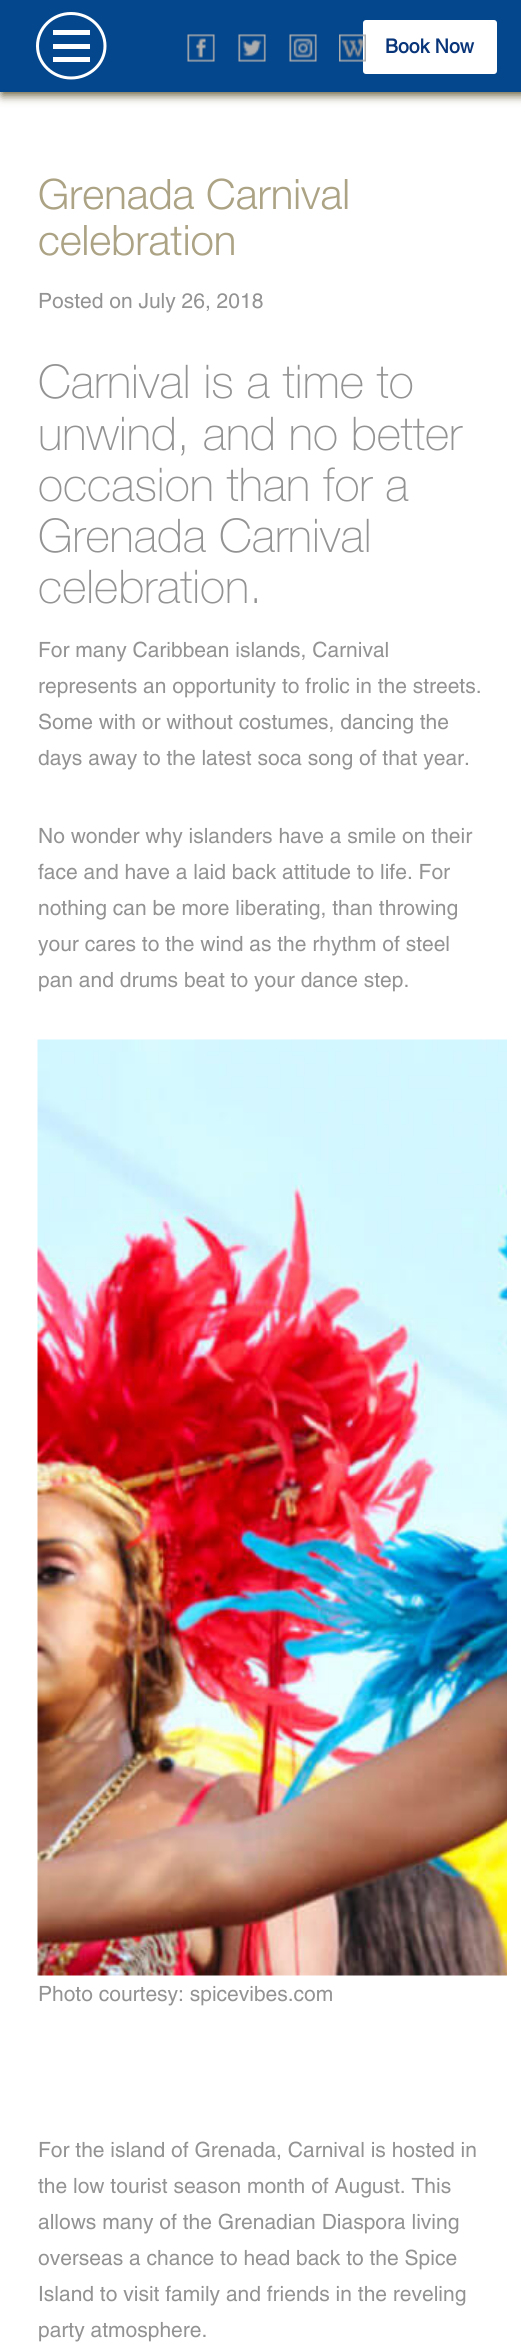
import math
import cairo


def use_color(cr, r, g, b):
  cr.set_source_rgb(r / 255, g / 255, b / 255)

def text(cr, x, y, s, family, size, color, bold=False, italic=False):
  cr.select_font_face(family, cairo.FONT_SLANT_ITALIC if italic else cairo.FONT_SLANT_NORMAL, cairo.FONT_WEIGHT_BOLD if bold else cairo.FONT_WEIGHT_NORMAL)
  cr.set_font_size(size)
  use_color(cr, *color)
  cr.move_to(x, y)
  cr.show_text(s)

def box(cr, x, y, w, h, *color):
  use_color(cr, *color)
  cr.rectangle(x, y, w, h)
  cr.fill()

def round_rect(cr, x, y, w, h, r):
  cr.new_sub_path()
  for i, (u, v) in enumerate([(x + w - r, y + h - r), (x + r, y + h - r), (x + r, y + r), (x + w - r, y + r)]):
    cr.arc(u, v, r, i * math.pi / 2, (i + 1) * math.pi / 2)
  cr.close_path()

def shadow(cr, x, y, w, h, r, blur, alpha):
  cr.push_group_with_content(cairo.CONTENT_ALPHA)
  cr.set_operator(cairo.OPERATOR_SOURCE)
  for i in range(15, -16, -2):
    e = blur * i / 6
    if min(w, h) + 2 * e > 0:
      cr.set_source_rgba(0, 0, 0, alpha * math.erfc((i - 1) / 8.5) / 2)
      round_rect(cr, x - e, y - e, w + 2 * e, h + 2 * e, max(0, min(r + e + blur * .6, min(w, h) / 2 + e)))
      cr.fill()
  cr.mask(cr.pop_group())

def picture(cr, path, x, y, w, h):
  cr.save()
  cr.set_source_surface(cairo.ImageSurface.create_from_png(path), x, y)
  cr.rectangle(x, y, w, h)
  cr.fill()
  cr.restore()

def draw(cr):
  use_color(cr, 255, 255, 255)
  cr.paint()
  use_color(cr, 58, 47, 2)
  shadow(cr, 2, 3, 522, 92, 0, 5, 0.81)
  box(cr, 0, 0, 521, 92, 4, 71, 141)
  cr.new_path()
  cr.move_to(71, 13.5)
  cr.curve_to(90, 13.5, 105, 28, 105, 46)
  cr.curve_to(105, 63.5, 90, 78, 71, 78)
  cr.curve_to(52.5, 78, 37.5, 63.5, 37.5, 46)
  cr.curve_to(37.5, 28, 52.5, 13.5, 71, 13.5)
  cr.close_path()
  use_color(cr, 255, 255, 255)
  cr.set_line_width(3)
  cr.stroke()
  box(cr, 53, 44, 37, 5, 255, 255, 255)
  box(cr, 53, 30, 37, 5, 255, 255, 255)
  box(cr, 53, 57, 37, 5, 255, 255, 255)
  picture(cr, "img_01.png", 187, 34, 28, 28)
  picture(cr, "img_02.png", 238, 34, 28, 28)
  picture(cr, "img_03.png", 289, 34, 28, 28)
  round_rect(cr, 363, 20, 134, 54, 3)
  cr.fill()
  picture(cr, "img_04.png", 339, 34, 27, 28)
  picture(cr, "img_05.png", 37, 1039, 470, 937)
  text(cr, 385, 53, "Book Now", "Helvetica", 19.5, (8, 52, 121), bold=True)
  text(cr, 38, 209, "Grenada Carnival", "Helvetica Neue Light", 42, (172, 163, 133))
  text(cr, 38, 255, "celebration", "Helvetica Neue Light", 42, (172, 163, 133))
  text(cr, 38, 308, "Posted on July 26, 2018", "Helvetica Medium", 21, (147, 147, 147))
  text(cr, 38, 398, "Carnival is a time to", "Helvetica Neue Thin", 46.5, (147, 147, 147))
  text(cr, 38, 450, "unwind, and no better", "Helvetica Neue Thin", 46.5, (147, 147, 147))
  text(cr, 38, 501, "occasion than for a", "Helvetica Neue Thin", 46.5, (147, 147, 147))
  text(cr, 38, 552, "Grenada Carnival", "Helvetica Neue Thin", 46.5, (147, 147, 147))
  text(cr, 38, 603, "celebration.", "Helvetica Neue Thin", 46.5, (147, 147, 147))
  text(cr, 38, 657, "For many Caribbean islands, Carnival", "Helvetica Medium", 21, (147, 147, 147))
  text(cr, 38, 693, "represents an opportunity to frolic in the streets.", "Helvetica Medium", 21, (147, 147, 147))
  text(cr, 38, 729, "Some with or without costumes, dancing the", "Helvetica Medium", 21, (147, 147, 147))
  text(cr, 38, 765, "days away to the latest soca song of that year.", "Helvetica Medium", 21, (147, 147, 147))
  text(cr, 38, 843, "No wonder why islanders have a smile on their", "Helvetica Medium", 21, (147, 147, 147))
  text(cr, 38, 879, "face and have a laid back attitude to life. For", "Helvetica Medium", 21, (147, 147, 147))
  text(cr, 38, 915, "nothing can be more liberating, than throwing", "Helvetica Medium", 21, (147, 147, 147))
  text(cr, 38, 951, "your cares to the wind as the rhythm of steel", "Helvetica Medium", 21, (147, 147, 147))
  text(cr, 38, 987, "pan and drums beat to your dance step.", "Helvetica Medium", 21, (147, 147, 147))
  text(cr, 38, 2001, "Photo courtesy: spicevibes.com", "Helvetica Medium", 21, (147, 147, 147))
  text(cr, 38, 2157, "For the island of Grenada, Carnival is hosted in", "Helvetica Medium", 21, (147, 147, 147))
  text(cr, 38, 2193, "the low tourist season month of August. This", "Helvetica Medium", 21, (147, 147, 147))
  text(cr, 38, 2229, "allows many of the Grenadian Diaspora living", "Helvetica Medium", 21, (147, 147, 147))
  text(cr, 38, 2265, "overseas a chance to head back to the Spice", "Helvetica Medium", 21, (147, 147, 147))
  text(cr, 38, 2301, "Island to visit family and friends in the reveling", "Helvetica Medium", 21, (147, 147, 147))
  text(cr, 38, 2337, "party atmosphere.", "Helvetica Medium", 21, (147, 147, 147))


surface = cairo.ImageSurface(cairo.FORMAT_RGB24, 521, 2348)
cr = cairo.Context(surface)
options = cairo.FontOptions()
options.set_hint_metrics(cairo.HINT_METRICS_OFF)
options.set_hint_style(cairo.HINT_STYLE_NONE)
cr.set_font_options(options)
cr.set_miter_limit(4)
draw(cr)
surface.write_to_png("out.png")
